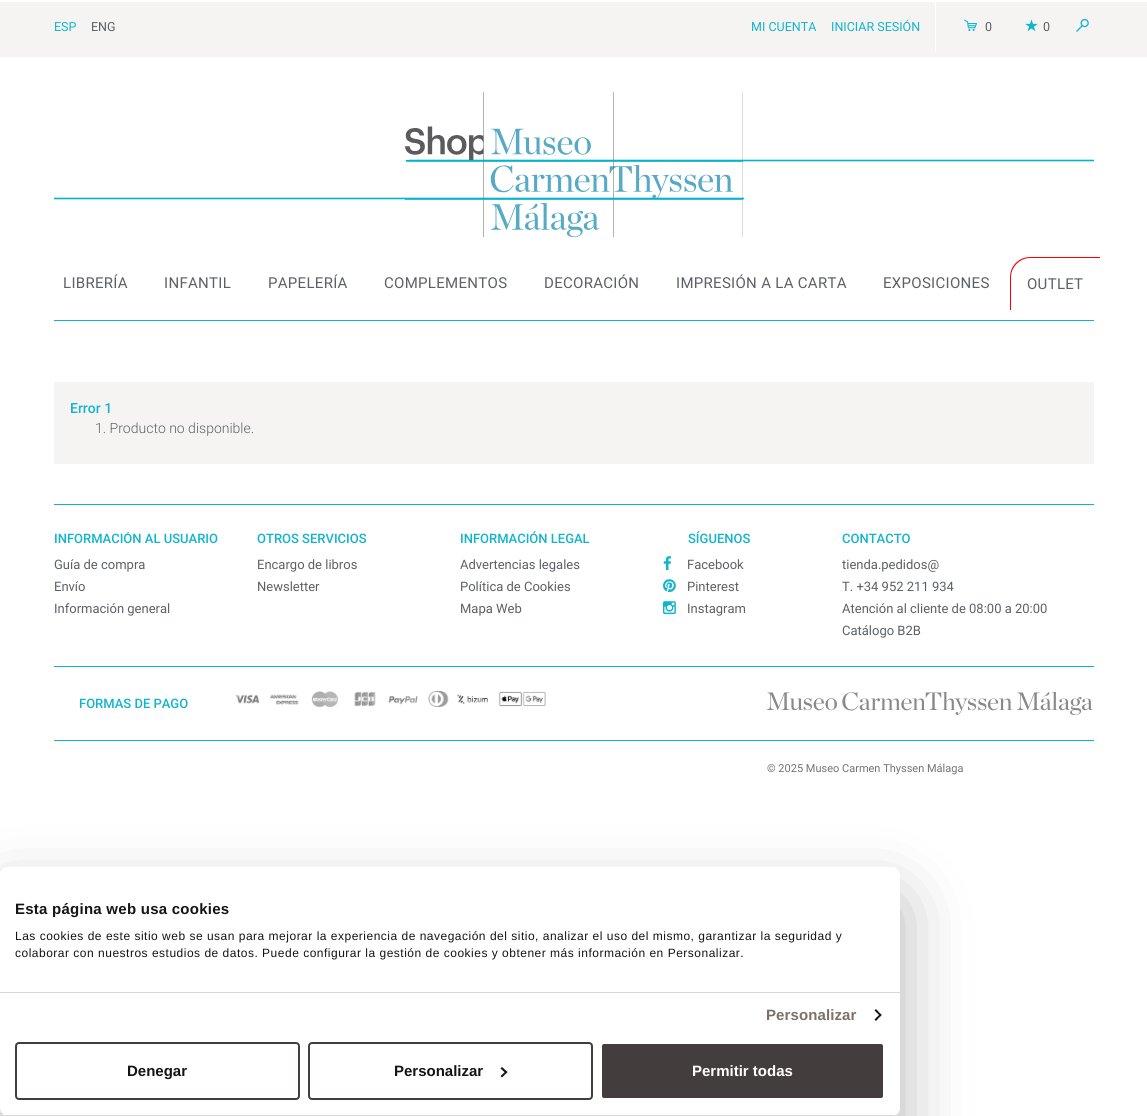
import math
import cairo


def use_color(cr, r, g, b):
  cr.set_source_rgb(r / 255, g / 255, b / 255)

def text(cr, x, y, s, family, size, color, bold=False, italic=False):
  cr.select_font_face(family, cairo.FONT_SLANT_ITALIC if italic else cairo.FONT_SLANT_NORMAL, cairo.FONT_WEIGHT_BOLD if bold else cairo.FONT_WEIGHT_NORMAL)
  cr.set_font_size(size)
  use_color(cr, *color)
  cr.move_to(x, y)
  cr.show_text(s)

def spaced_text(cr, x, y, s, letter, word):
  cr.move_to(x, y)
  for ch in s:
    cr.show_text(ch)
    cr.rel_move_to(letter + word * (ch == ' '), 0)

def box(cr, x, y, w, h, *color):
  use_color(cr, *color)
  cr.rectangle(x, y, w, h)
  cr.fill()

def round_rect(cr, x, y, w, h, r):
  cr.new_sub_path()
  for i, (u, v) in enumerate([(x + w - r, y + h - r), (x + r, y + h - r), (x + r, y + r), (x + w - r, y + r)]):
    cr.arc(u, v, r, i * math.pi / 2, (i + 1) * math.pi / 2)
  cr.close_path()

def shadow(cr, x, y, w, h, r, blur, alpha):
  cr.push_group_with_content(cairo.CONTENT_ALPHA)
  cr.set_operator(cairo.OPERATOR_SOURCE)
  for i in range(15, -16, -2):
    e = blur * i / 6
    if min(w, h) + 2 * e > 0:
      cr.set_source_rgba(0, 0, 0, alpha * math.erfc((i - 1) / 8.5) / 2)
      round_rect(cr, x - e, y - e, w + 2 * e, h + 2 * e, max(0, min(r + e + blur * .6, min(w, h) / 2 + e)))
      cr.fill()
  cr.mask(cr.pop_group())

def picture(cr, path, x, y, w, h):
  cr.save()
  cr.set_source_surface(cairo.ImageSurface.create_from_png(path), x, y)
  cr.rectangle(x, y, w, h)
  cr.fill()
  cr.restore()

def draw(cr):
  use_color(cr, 255, 255, 255)
  cr.paint()
  box(cr, 0, 2, 1147, 55, 246, 244, 243)
  box(cr, 935, 2, 1, 50, 255, 255, 255)
  picture(cr, "img_01.png", 964, 19, 13, 12)
  picture(cr, "img_02.png", 1025, 19, 13, 13)
  picture(cr, "img_03.png", 1076, 18, 13, 14)
  cr.save()
  cr.rectangle(54, 92, 1040, 145)
  cr.clip()
  cr.new_path()
  cr.move_to(409, 160.5)
  cr.line_to(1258.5, 160.5)
  use_color(cr, 3, 180, 202)
  cr.set_line_width(1.6)
  cr.stroke()
  cr.new_path()
  cr.move_to(-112, 198.5)
  cr.line_to(744, 198.5)
  cr.stroke()
  cr.restore()
  picture(cr, "img_04.png", 405, 92, 338, 145)
  use_color(cr, 255, 0, 0)
  cr.set_fill_rule(cairo.FILL_RULE_EVEN_ODD)
  cr.new_path()
  cr.move_to(1030, 257)
  cr.line_to(1100, 257)
  cr.line_to(1100, 310)
  cr.line_to(1010, 310)
  cr.line_to(1010, 277)
  cr.curve_to(1010, 266, 1019, 257, 1030, 257)
  cr.close_path()
  cr.move_to(1030, 258)
  cr.line_to(1100, 258)
  cr.line_to(1100, 310)
  cr.line_to(1011, 310)
  cr.line_to(1011, 277)
  cr.curve_to(1011, 267, 1020, 258, 1030, 258)
  cr.close_path()
  cr.fill()
  box(cr, 54, 320, 1040, 1, 17, 181, 203)
  box(cr, 54, 382, 1040, 82, 246, 244, 243)
  box(cr, 54, 504, 1040, 1, 17, 181, 203)
  box(cr, 54, 666, 1040, 1, 17, 181, 203)
  picture(cr, "img_05.png", 663, 556, 9, 15)
  picture(cr, "img_06.png", 663, 579, 13, 14)
  picture(cr, "img_07.png", 663, 601, 13, 14)
  box(cr, 54, 740, 1040, 1, 17, 181, 203)
  picture(cr, "img_08.png", 235, 691, 311, 16)
  picture(cr, "img_09.png", 767, 692, 326, 23)
  use_color(cr, 0, 0, 0)
  shadow(cr, 0, 899, 900, 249, 8, 34, 0.3)
  use_color(cr, 255, 255, 255)
  round_rect(cr, 0, 867, 900, 249, 8)
  cr.fill()
  box(cr, 0, 992, 900, 1, 214, 214, 214)
  use_color(cr, 20, 20, 20)
  cr.set_fill_rule(cairo.FILL_RULE_WINDING)
  cr.new_path()
  cr.move_to(876, 1009)
  cr.line_to(881.5, 1015)
  cr.line_to(880.5, 1016.5)
  cr.line_to(874.5, 1010.5)
  cr.close_path()
  cr.fill()
  cr.new_path()
  cr.move_to(880.5, 1013.5)
  cr.line_to(881.5, 1015)
  cr.line_to(876, 1021)
  cr.line_to(874.5, 1019.5)
  cr.close_path()
  cr.fill()
  cr.save()
  round_rect(cr, 0, 867, 900, 249, 8)
  cr.clip()
  box(cr, 0, 1115, 900, 1, 214, 214, 214)
  cr.restore()
  round_rect(cr, 16, 1043, 283, 56, 3)
  use_color(cr, 68, 61, 61)
  cr.stroke()
  round_rect(cr, 309, 1043, 283, 56, 3)
  cr.stroke()
  use_color(cr, 20, 20, 20)
  cr.new_path()
  cr.move_to(502, 1067)
  cr.line_to(507.5, 1072)
  cr.line_to(506, 1073.5)
  cr.line_to(500.5, 1068.5)
  cr.close_path()
  cr.fill()
  cr.new_path()
  cr.move_to(506, 1071)
  cr.line_to(507.5, 1072)
  cr.line_to(502, 1077.5)
  cr.line_to(500.5, 1076)
  cr.close_path()
  cr.fill()
  use_color(cr, 68, 61, 61)
  round_rect(cr, 601, 1043, 283, 56, 3)
  cr.fill_preserve()
  use_color(cr, 255, 255, 255)
  cr.stroke()
  text(cr, 54, 31, "ESP", "Roboto", 12.5, (17, 181, 203))
  text(cr, 91, 31, "ENG", "Roboto", 12.5, (91, 97, 103))
  text(cr, 751, 31, "MI CUENTA", "Roboto", 12.5, (17, 181, 203))
  text(cr, 831, 31, "INICIAR SESIÓN", "Roboto", 12.5, (17, 181, 203))
  text(cr, 985, 31, "0", "Roboto", 12.5, (91, 97, 103))
  text(cr, 1043, 31, "0", "Roboto", 12.5, (91, 97, 103))
  cr.set_font_size(15)
  spaced_text(cr, 63, 288, "LIBRERÍA", 0.3, 0)
  spaced_text(cr, 164, 288, "INFANTIL", 0.3, 0)
  spaced_text(cr, 268, 288, "PAPELERÍA", 0.3, 0)
  spaced_text(cr, 384, 288, "COMPLEMENTOS", 0.3, 0)
  spaced_text(cr, 544, 288, "DECORACIÓN", 0.3, 0)
  spaced_text(cr, 676, 288, "IMPRESIÓN A LA CARTA", 0.3, 0)
  spaced_text(cr, 883, 288, "EXPOSICIONES", 0.3, 0)
  spaced_text(cr, 1027, 289, "OUTLET", 0.3, 0)
  text(cr, 70, 413, "Error 1", "Roboto Medium", 14, (17, 181, 203))
  text(cr, 95, 433, "1. Producto no disponible.", "Roboto Light", 14, (91, 97, 103))
  cr.save()
  cr.rectangle(54, 532, 173, 13)
  cr.clip()
  text(cr, 54, 543, "INFORMACIÓN AL USUARIO", "Roboto Medium", 13, (17, 181, 203))
  cr.restore()
  text(cr, 54, 569, "Guía de compra", "Roboto", 13, (91, 97, 103))
  text(cr, 54, 591, "Envío", "Roboto", 13, (91, 97, 103))
  text(cr, 54, 613, "Información general", "Roboto", 13, (91, 97, 103))
  text(cr, 257, 543, "OTROS SERVICIOS", "Roboto Medium", 13, (17, 181, 203))
  text(cr, 257, 569, "Encargo de libros", "Roboto", 13, (91, 97, 103))
  text(cr, 257, 591, "Newsletter", "Roboto", 13, (91, 97, 103))
  text(cr, 460, 543, "INFORMACIÓN LEGAL", "Roboto Medium", 13, (17, 181, 203))
  text(cr, 460, 569, "Advertencias legales", "Roboto", 13, (91, 97, 103))
  text(cr, 460, 591, "Política de Cookies", "Roboto", 13, (91, 97, 103))
  text(cr, 460, 613, "Mapa Web", "Roboto", 13, (91, 97, 103))
  text(cr, 688, 543, "SÍGUENOS", "Roboto Medium", 13, (17, 181, 203))
  text(cr, 687, 569, "Facebook", "Roboto", 13, (91, 97, 103))
  text(cr, 687, 591, "Pinterest", "Roboto", 13, (91, 97, 103))
  text(cr, 687, 613, "Instagram", "Roboto", 13, (91, 97, 103))
  text(cr, 842, 543, "CONTACTO", "Roboto Medium", 13, (17, 181, 203))
  text(cr, 842, 569, "tienda.pedidos@", "Roboto", 13, (91, 97, 103))
  text(cr, 842, 591, "T. +34 952 211 934", "Roboto", 13, (91, 97, 103))
  text(cr, 842, 613, "Atención al cliente de 08:00 a 20:00", "Roboto", 13, (91, 97, 103))
  text(cr, 842, 635, "Catálogo B2B", "Roboto", 13, (91, 97, 103))
  text(cr, 79, 708, "FORMAS DE PAGO", "Roboto Medium", 13, (17, 181, 203))
  text(cr, 767, 772, "© 2025 Museo Carmen Thyssen Málaga", "Roboto", 11, (116, 115, 116))
  cr.select_font_face("Liberation Sans", cairo.FONT_SLANT_NORMAL, cairo.FONT_WEIGHT_BOLD)
  cr.set_font_size(15)
  use_color(cr, 20, 20, 20)
  spaced_text(cr, 15, 914, "Esta página web usa cookies", 0.25, 0)
  cr.select_font_face("Liberation Sans")
  cr.set_font_size(12)
  spaced_text(cr, 15, 940, "Las cookies de este sitio web se usan para mejorar la experiencia de navegación del sitio, analizar el uso del mismo, garantizar la seguridad y", 0.5, 0)
  spaced_text(cr, 15, 957, "colaborar con nuestros estudios de datos. Puede configurar la gestión de cookies y obtener más información en Personalizar.", 0.5, 0)
  cr.select_font_face("Liberation Sans", cairo.FONT_SLANT_NORMAL, cairo.FONT_WEIGHT_BOLD)
  cr.set_font_size(15)
  use_color(cr, 125, 113, 103)
  spaced_text(cr, 766, 1020, "Personalizar", 0.1, 0)
  text(cr, 127, 1076, "Denegar", "Liberation Sans", 15, (20, 20, 20), bold=True)
  text(cr, 394, 1076, "Personalizar", "Liberation Sans", 15, (20, 20, 20), bold=True)
  text(cr, 692, 1076, "Permitir todas", "Liberation Sans", 15, (255, 255, 255), bold=True)


surface = cairo.ImageSurface(cairo.FORMAT_RGB24, 1147, 1116)
cr = cairo.Context(surface)
options = cairo.FontOptions()
options.set_hint_metrics(cairo.HINT_METRICS_OFF)
options.set_hint_style(cairo.HINT_STYLE_NONE)
cr.set_font_options(options)
cr.set_miter_limit(4)
draw(cr)
surface.write_to_png("out.png")
